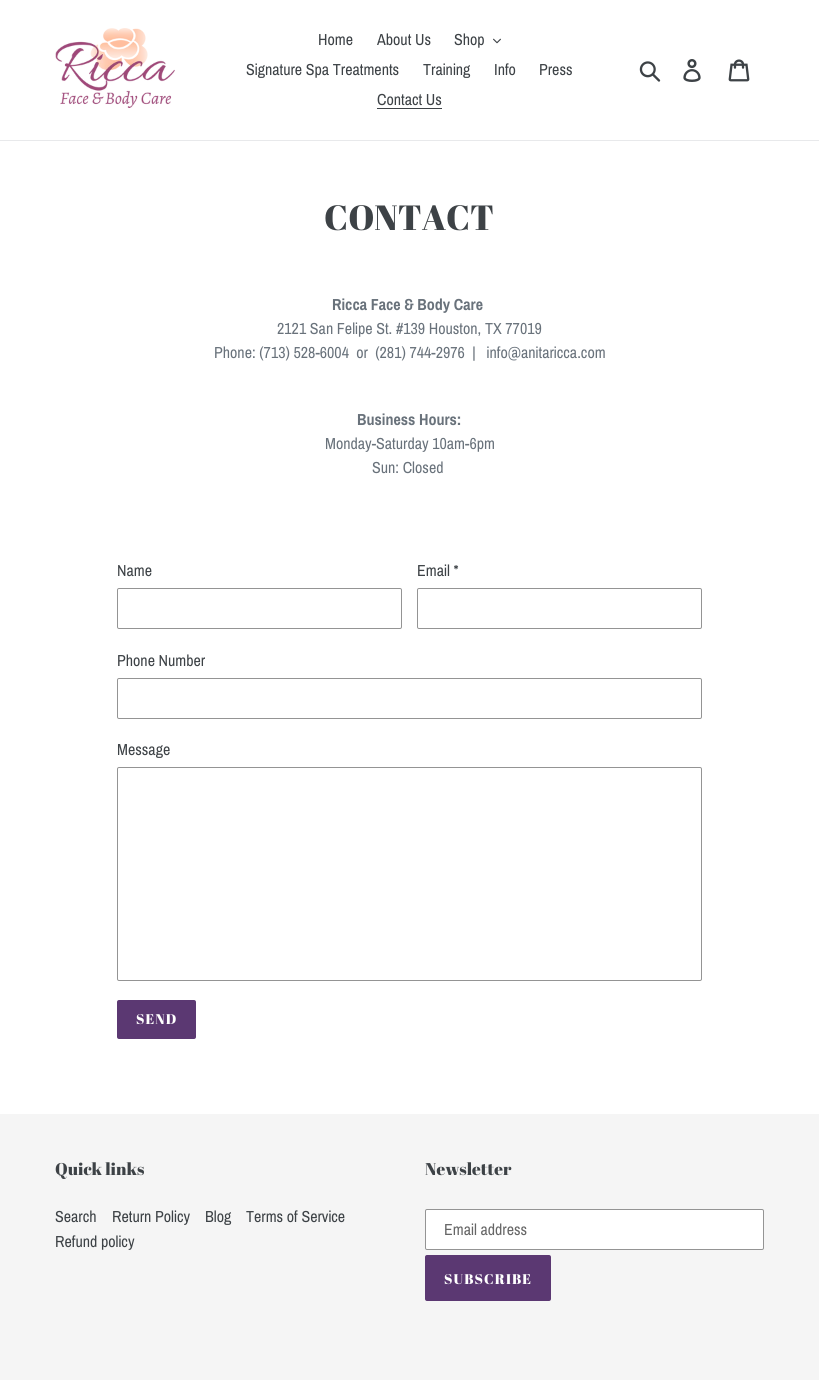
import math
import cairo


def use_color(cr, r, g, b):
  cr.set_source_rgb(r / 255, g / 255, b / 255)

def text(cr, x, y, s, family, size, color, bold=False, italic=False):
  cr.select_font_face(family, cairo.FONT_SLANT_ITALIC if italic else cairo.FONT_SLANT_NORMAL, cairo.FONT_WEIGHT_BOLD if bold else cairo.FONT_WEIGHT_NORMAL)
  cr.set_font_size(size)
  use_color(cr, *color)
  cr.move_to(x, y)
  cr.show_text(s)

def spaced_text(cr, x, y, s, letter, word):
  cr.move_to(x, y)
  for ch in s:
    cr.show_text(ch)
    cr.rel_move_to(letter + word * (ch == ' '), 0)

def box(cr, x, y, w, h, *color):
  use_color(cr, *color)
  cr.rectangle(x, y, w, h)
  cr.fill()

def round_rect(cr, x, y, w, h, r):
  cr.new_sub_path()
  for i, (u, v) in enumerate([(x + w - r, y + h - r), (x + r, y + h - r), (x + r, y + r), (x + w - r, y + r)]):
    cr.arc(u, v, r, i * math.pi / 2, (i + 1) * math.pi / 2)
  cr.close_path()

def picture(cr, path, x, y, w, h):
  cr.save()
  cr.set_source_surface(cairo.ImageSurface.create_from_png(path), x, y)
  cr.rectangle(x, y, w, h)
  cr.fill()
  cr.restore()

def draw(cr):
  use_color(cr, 255, 255, 255)
  cr.paint()
  box(cr, 0, 140, 819, 1, 232, 233, 235)
  picture(cr, "img_01.png", 55, 28, 120, 80)
  picture(cr, "img_02.png", 493, 38, 8, 6)
  box(cr, 377, 108, 65, 1, 61, 66, 70)
  picture(cr, "img_03.png", 639, 61, 22, 21)
  picture(cr, "img_04.png", 683, 59, 18, 23)
  picture(cr, "img_05.png", 728, 59, 22, 23)
  round_rect(cr, 117.5, 588.5, 284, 40, 1.5)
  use_color(cr, 148, 148, 148)
  cr.set_line_width(1)
  cr.stroke()
  round_rect(cr, 417.5, 588.5, 284, 40, 1.5)
  cr.stroke()
  round_rect(cr, 117.5, 678.5, 584, 40, 1.5)
  cr.stroke()
  round_rect(cr, 117.5, 767.5, 584, 213, 1.5)
  cr.stroke()
  use_color(cr, 91, 56, 114)
  round_rect(cr, 117, 1000, 79, 39, 2)
  cr.fill()
  box(cr, 0, 1114, 819, 266, 245, 245, 245)
  use_color(cr, 255, 255, 255)
  round_rect(cr, 425.5, 1209.5, 338, 40, 1.5)
  cr.fill_preserve()
  use_color(cr, 148, 148, 148)
  cr.stroke()
  use_color(cr, 91, 56, 114)
  round_rect(cr, 425, 1255, 126, 46, 2)
  cr.fill()
  text(cr, 318, 45, "Home", "Archivo Narrow", 16, (61, 66, 70))
  text(cr, 377, 45, "About Us", "Archivo Narrow", 16, (61, 66, 70))
  text(cr, 454, 45, "Shop", "Archivo Narrow", 16, (61, 66, 70))
  text(cr, 246, 75, "Signature Spa Treatments", "Archivo Narrow", 16, (61, 66, 70))
  text(cr, 423, 75, "Training", "Archivo Narrow", 16, (61, 66, 70))
  text(cr, 494, 75, "Info", "Archivo Narrow", 16, (61, 66, 70))
  text(cr, 539, 75, "Press", "Archivo Narrow", 16, (61, 66, 70))
  text(cr, 377, 105, "Contact Us", "Archivo Narrow", 16, (61, 66, 70))
  text(cr, 324, 230, "CONTACT", "Abril Fatface", 35, (61, 66, 70))
  text(cr, 332, 310, "Ricca Face & Body Care", "Archivo Narrow", 16, (105, 114, 123), bold=True)
  text(cr, 277, 334, "2121 San Felipe St. #139 Houston, TX 77019", "Archivo Narrow", 16, (105, 114, 123))
  text(cr, 214, 358, "Phone: (713) 528-6004  or  (281) 744-2976  |   info@anitaricca.com", "Archivo Narrow", 16, (105, 114, 123))
  text(cr, 357, 425, "Business Hours:", "Archivo Narrow", 16, (105, 114, 123), bold=True)
  text(cr, 325, 449, "Monday-Saturday 10am-6pm", "Archivo Narrow", 16, (105, 114, 123))
  text(cr, 372, 473, "Sun: Closed", "Archivo Narrow", 16, (105, 114, 123))
  text(cr, 117, 576, "Name", "Archivo Narrow", 16, (61, 66, 70))
  text(cr, 417, 576, "Email *", "Archivo Narrow", 16, (61, 66, 70))
  text(cr, 117, 666, "Phone Number", "Archivo Narrow", 16, (61, 66, 70))
  text(cr, 117, 755, "Message", "Archivo Narrow", 16, (61, 66, 70))
  cr.select_font_face("Abril Fatface")
  cr.set_font_size(14)
  use_color(cr, 255, 255, 255)
  spaced_text(cr, 136, 1024, "SEND", 1.1, 0)
  text(cr, 55, 1175, "Quick links", "Abril Fatface", 17, (61, 66, 70))
  text(cr, 55, 1222, "Search", "Archivo Narrow", 16, (61, 66, 70))
  text(cr, 112, 1222, "Return Policy", "Archivo Narrow", 16, (61, 66, 70))
  text(cr, 205, 1222, "Blog", "Archivo Narrow", 16, (61, 66, 70))
  text(cr, 246, 1222, "Terms of Service", "Archivo Narrow", 16, (61, 66, 70))
  text(cr, 55, 1247, "Refund policy", "Archivo Narrow", 16, (61, 66, 70))
  text(cr, 425, 1175, "Newsletter", "Abril Fatface", 17, (61, 66, 70))
  text(cr, 444, 1235, "Email address", "Archivo Narrow", 16, (102, 102, 102))
  cr.select_font_face("Abril Fatface")
  cr.set_font_size(14)
  use_color(cr, 255, 255, 255)
  spaced_text(cr, 444, 1284, "SUBSCRIBE", 1.1, 0)


surface = cairo.ImageSurface(cairo.FORMAT_RGB24, 819, 1380)
cr = cairo.Context(surface)
options = cairo.FontOptions()
options.set_hint_metrics(cairo.HINT_METRICS_OFF)
options.set_hint_style(cairo.HINT_STYLE_NONE)
cr.set_font_options(options)
cr.set_miter_limit(4)
draw(cr)
surface.write_to_png("out.png")
